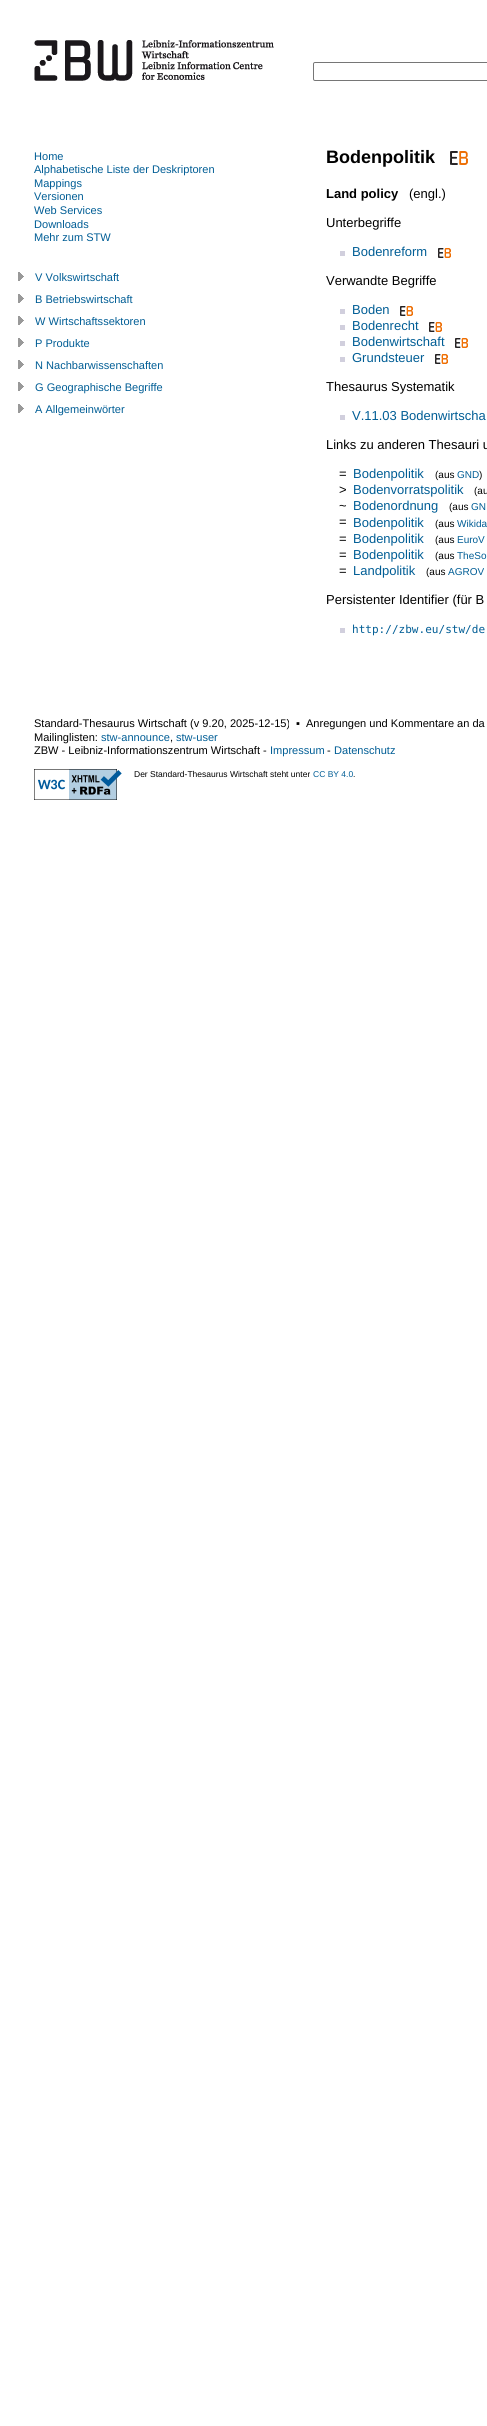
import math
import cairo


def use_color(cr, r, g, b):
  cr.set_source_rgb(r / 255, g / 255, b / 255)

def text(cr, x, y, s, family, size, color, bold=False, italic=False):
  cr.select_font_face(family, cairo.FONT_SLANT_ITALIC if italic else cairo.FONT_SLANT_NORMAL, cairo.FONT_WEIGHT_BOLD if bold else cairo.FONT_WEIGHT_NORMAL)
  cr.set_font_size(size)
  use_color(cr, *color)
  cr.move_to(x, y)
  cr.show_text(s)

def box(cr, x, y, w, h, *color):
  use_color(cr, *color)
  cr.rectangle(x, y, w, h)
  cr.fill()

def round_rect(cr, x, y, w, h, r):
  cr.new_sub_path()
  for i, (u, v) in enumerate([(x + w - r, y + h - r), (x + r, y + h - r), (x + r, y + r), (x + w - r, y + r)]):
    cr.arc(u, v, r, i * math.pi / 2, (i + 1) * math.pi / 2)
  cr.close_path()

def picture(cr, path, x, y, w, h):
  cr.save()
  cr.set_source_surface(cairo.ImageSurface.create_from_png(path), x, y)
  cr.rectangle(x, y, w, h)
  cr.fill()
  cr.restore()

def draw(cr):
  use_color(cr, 255, 255, 255)
  cr.paint()
  picture(cr, "img_01.png", 34, 40, 240, 41)
  round_rect(cr, 313.5, 62.5, 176, 18, 1.5)
  use_color(cr, 118, 118, 118)
  cr.set_line_width(1)
  cr.stroke()
  picture(cr, "img_02.png", 18, 272, 6, 9)
  picture(cr, "img_02.png", 18, 294, 6, 9)
  picture(cr, "img_02.png", 18, 316, 6, 9)
  picture(cr, "img_02.png", 18, 338, 6, 9)
  picture(cr, "img_02.png", 18, 360, 6, 9)
  picture(cr, "img_02.png", 18, 382, 6, 9)
  picture(cr, "img_02.png", 18, 404, 6, 9)
  picture(cr, "img_03.png", 450, 151, 18, 14)
  box(cr, 340, 251, 5, 5, 209, 207, 221)
  picture(cr, "img_04.png", 438, 248, 13, 10)
  box(cr, 340, 309, 5, 5, 209, 207, 221)
  picture(cr, "img_04.png", 400, 306, 13, 10)
  box(cr, 340, 325, 5, 5, 209, 207, 221)
  picture(cr, "img_04.png", 429, 322, 13, 10)
  box(cr, 340, 341, 5, 5, 209, 207, 221)
  picture(cr, "img_04.png", 455, 338, 13, 10)
  box(cr, 340, 357, 5, 5, 209, 207, 221)
  picture(cr, "img_04.png", 435, 354, 13, 10)
  box(cr, 340, 415, 5, 5, 209, 207, 221)
  box(cr, 340, 628, 5, 5, 209, 207, 221)
  picture(cr, "img_05.png", 34, 769, 88, 31)
  text(cr, 34, 160, "Home", "Liberation Sans", 11.05, (0, 93, 149))
  text(cr, 34, 173, "Alphabetische Liste der Deskriptoren", "Liberation Sans", 11.05, (0, 93, 149))
  text(cr, 34, 187, "Mappings", "Liberation Sans", 11.05, (0, 93, 149))
  text(cr, 34, 200, "Versionen", "Liberation Sans", 11.05, (0, 93, 149))
  text(cr, 34, 214, "Web Services", "Liberation Sans", 11.05, (0, 93, 149))
  text(cr, 34, 228, "Downloads", "Liberation Sans", 11.05, (0, 93, 149))
  text(cr, 34, 241, "Mehr zum STW", "Liberation Sans", 11.05, (0, 93, 149))
  text(cr, 35, 281, "V Volkswirtschaft", "Liberation Sans", 11.05, (0, 93, 149))
  text(cr, 35, 303, "B Betriebswirtschaft", "Liberation Sans", 11.05, (0, 93, 149))
  text(cr, 35, 325, "W Wirtschaftssektoren", "Liberation Sans", 11.05, (0, 93, 149))
  text(cr, 35, 347, "P Produkte", "Liberation Sans", 11.05, (0, 93, 149))
  text(cr, 35, 369, "N Nachbarwissenschaften", "Liberation Sans", 11.05, (0, 93, 149))
  text(cr, 35, 391, "G Geographische Begriffe", "Liberation Sans", 11.05, (0, 93, 149))
  text(cr, 35, 413, "A Allgemeinwörter", "Liberation Sans", 11.05, (0, 93, 149))
  text(cr, 326, 163, "Bodenpolitik", "Liberation Sans", 18, (0, 0, 0), bold=True)
  text(cr, 326, 198, "Land policy", "Liberation Sans", 13, (0, 0, 0), bold=True)
  text(cr, 409, 198, "(engl.)", "Liberation Sans", 13, (0, 0, 0))
  text(cr, 326, 227, "Unterbegriffe", "Liberation Sans", 13, (0, 0, 0))
  text(cr, 352, 256, "Bodenreform", "Liberation Sans", 13, (0, 93, 149))
  text(cr, 326, 285, "Verwandte Begriffe", "Liberation Sans", 13, (0, 0, 0))
  text(cr, 352, 314, "Boden", "Liberation Sans", 13, (0, 93, 149))
  text(cr, 352, 330, "Bodenrecht", "Liberation Sans", 13, (0, 93, 149))
  text(cr, 352, 346, "Bodenwirtschaft", "Liberation Sans", 13, (0, 93, 149))
  text(cr, 352, 362, "Grundsteuer", "Liberation Sans", 13, (0, 93, 149))
  text(cr, 326, 391, "Thesaurus Systematik", "Liberation Sans", 13, (0, 0, 0))
  text(cr, 352, 420, "V.11.03 Bodenwirtscha", "Liberation Sans", 13, (0, 93, 149))
  text(cr, 326, 449, "Links zu anderen Thesauri u", "Liberation Sans", 13, (0, 0, 0))
  text(cr, 339, 478, "=", "Liberation Sans", 13, (0, 0, 0))
  text(cr, 353, 478, "Bodenpolitik", "Liberation Sans", 13, (0, 93, 149))
  text(cr, 435, 478, "(aus", "Liberation Sans", 10, (0, 0, 0))
  text(cr, 457, 478, "GND", "Liberation Sans", 10, (0, 93, 149))
  text(cr, 479, 478, ")", "Liberation Sans", 10, (0, 0, 0))
  text(cr, 339, 494, ">", "Liberation Sans", 13, (0, 0, 0))
  text(cr, 353, 494, "Bodenvorratspolitik", "Liberation Sans", 13, (0, 93, 149))
  text(cr, 474, 494, "(au", "Liberation Sans", 10, (0, 0, 0))
  text(cr, 339, 510, "~", "Liberation Sans", 13, (0, 0, 0))
  text(cr, 353, 510, "Bodenordnung", "Liberation Sans", 13, (0, 93, 149))
  text(cr, 449, 510, "(aus", "Liberation Sans", 10, (0, 0, 0))
  text(cr, 471, 510, "GN", "Liberation Sans", 10, (0, 93, 149))
  text(cr, 339, 526, "=", "Liberation Sans", 13, (0, 0, 0))
  text(cr, 353, 527, "Bodenpolitik", "Liberation Sans", 13, (0, 93, 149))
  text(cr, 435, 527, "(aus", "Liberation Sans", 10, (0, 0, 0))
  text(cr, 457, 527, "Wikida", "Liberation Sans", 10, (0, 93, 149))
  text(cr, 339, 543, "=", "Liberation Sans", 13, (0, 0, 0))
  text(cr, 353, 543, "Bodenpolitik", "Liberation Sans", 13, (0, 93, 149))
  text(cr, 435, 543, "(aus", "Liberation Sans", 10, (0, 0, 0))
  text(cr, 457, 543, "EuroV", "Liberation Sans", 10, (0, 93, 149))
  text(cr, 339, 559, "=", "Liberation Sans", 13, (0, 0, 0))
  text(cr, 353, 559, "Bodenpolitik", "Liberation Sans", 13, (0, 93, 149))
  text(cr, 435, 559, "(aus", "Liberation Sans", 10, (0, 0, 0))
  text(cr, 457, 559, "TheSo", "Liberation Sans", 10, (0, 93, 149))
  text(cr, 339, 575, "=", "Liberation Sans", 13, (0, 0, 0))
  text(cr, 353, 575, "Landpolitik", "Liberation Sans", 13, (0, 93, 149))
  text(cr, 426, 575, "(aus", "Liberation Sans", 10, (0, 0, 0))
  text(cr, 448, 575, "AGROV", "Liberation Sans", 10, (0, 93, 149))
  text(cr, 326, 604, "Persistenter Identifier (für B", "Liberation Sans", 13, (0, 0, 0))
  text(cr, 352, 633, "http://zbw.eu/stw/de", "DejaVu Sans Mono", 11.05, (0, 93, 149))
  text(cr, 34, 727, "Standard-Thesaurus Wirtschaft (v 9.20, 2025-12-15)", "Liberation Sans", 11.05, (0, 0, 0))
  text(cr, 296, 727, "▪", "Liberation Sans", 11.05, (0, 0, 0))
  text(cr, 306, 727, "Anregungen und Kommentare an da", "Liberation Sans", 11.05, (0, 0, 0))
  text(cr, 34, 741, "Mailinglisten:", "Liberation Sans", 11.05, (0, 0, 0))
  text(cr, 101, 741, "stw-announce", "Liberation Sans", 11.05, (0, 93, 149))
  text(cr, 170, 741, ",", "Liberation Sans", 11.05, (0, 0, 0))
  text(cr, 176, 741, "stw-user", "Liberation Sans", 11.05, (0, 93, 149))
  text(cr, 34, 754, "ZBW - Leibniz-Informationszentrum Wirtschaft -", "Liberation Sans", 11.05, (0, 0, 0))
  text(cr, 270, 754, "Impressum", "Liberation Sans", 11.05, (0, 93, 149))
  text(cr, 327, 754, "-", "Liberation Sans", 11.05, (0, 0, 0))
  text(cr, 334, 754, "Datenschutz", "Liberation Sans", 11.05, (0, 93, 149))
  text(cr, 134, 777, "Der Standard-Thesaurus Wirtschaft steht unter", "Liberation Sans", 8.5, (0, 0, 0))
  text(cr, 313, 777, "CC BY 4.0", "Liberation Sans", 8.5, (0, 93, 149))
  text(cr, 353, 777, ".", "Liberation Sans", 8.5, (0, 0, 0))


surface = cairo.ImageSurface(cairo.FORMAT_RGB24, 487, 2426)
cr = cairo.Context(surface)
options = cairo.FontOptions()
options.set_hint_metrics(cairo.HINT_METRICS_OFF)
options.set_hint_style(cairo.HINT_STYLE_NONE)
cr.set_font_options(options)
cr.set_miter_limit(4)
draw(cr)
surface.write_to_png("out.png")
